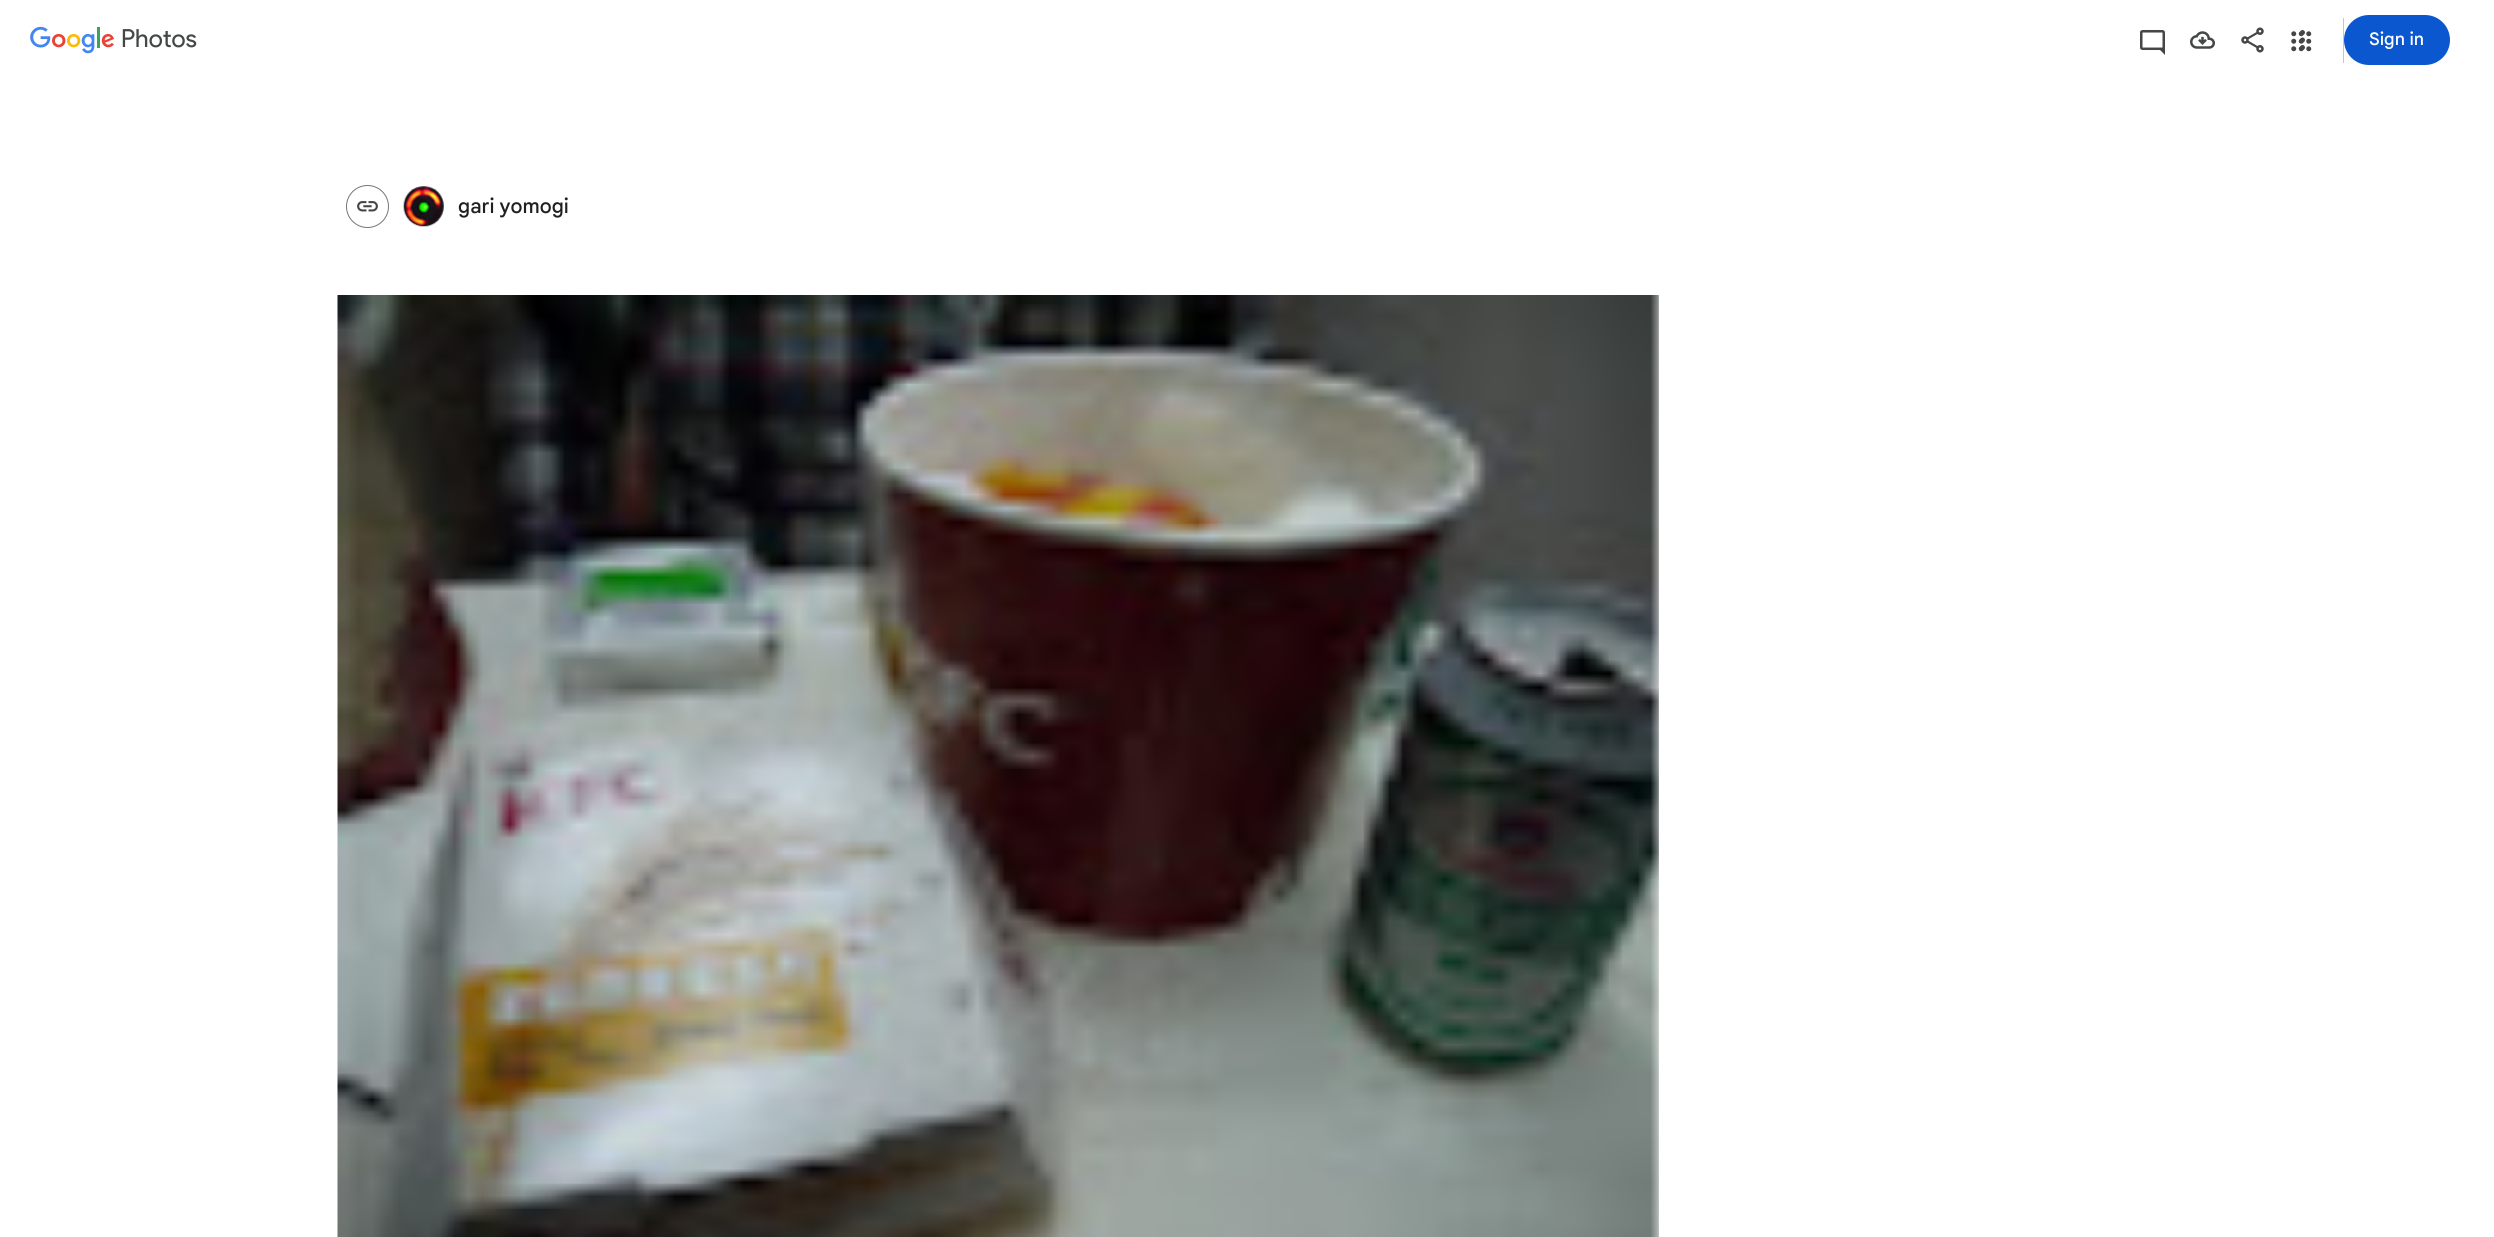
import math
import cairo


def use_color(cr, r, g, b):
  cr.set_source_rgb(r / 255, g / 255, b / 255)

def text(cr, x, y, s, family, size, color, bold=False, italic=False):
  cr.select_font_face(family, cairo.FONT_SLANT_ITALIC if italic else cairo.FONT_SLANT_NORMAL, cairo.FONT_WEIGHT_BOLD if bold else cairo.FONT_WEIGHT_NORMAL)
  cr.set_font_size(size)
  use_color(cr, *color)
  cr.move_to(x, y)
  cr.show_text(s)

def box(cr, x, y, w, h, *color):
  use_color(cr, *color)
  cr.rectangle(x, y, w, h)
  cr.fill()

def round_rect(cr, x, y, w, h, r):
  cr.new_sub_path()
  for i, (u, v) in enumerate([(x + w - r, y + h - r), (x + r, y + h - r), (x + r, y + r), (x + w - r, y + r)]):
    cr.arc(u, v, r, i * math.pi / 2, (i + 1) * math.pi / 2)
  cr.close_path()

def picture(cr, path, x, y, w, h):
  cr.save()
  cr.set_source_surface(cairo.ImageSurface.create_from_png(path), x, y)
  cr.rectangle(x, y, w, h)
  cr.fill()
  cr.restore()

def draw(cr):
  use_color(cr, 255, 255, 255)
  cr.paint()
  picture(cr, "img_01.png", 30, 26, 84, 28)
  picture(cr, "img_02.png", 2140, 30, 25, 25)
  picture(cr, "img_03.png", 2190, 31, 25, 18)
  picture(cr, "img_04.png", 2241, 27, 23, 26)
  picture(cr, "img_05.png", 2300, 30, 5, 20)
  box(cr, 2343, 18, 1, 45, 196, 199, 197)
  cr.arc(367.5, 206.5, 21, 0, 2 * math.pi)
  use_color(cr, 116, 119, 117)
  cr.set_line_width(1)
  cr.stroke()
  picture(cr, "img_06.png", 357, 201, 21, 11)
  picture(cr, "img_07.png", 403, 186, 41, 41)
  picture(cr, "img_08.png", 337, 295, 1322, 942)
  picture(cr, "img_09.png", 2291, 31, 21, 21)
  use_color(cr, 11, 87, 208)
  round_rect(cr, 2344, 15, 106, 50, 25)
  cr.fill()
  text(cr, 121, 47, "Photos", "Product Sans", 25, (68, 71, 70))
  text(cr, 458, 213, "gari yomogi", "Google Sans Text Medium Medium", 20, (31, 31, 31))
  text(cr, 2369, 45, "Sign in", "Google Sans Text Medium Medium", 17.5, (255, 255, 255))


surface = cairo.ImageSurface(cairo.FORMAT_RGB24, 2494, 1237)
cr = cairo.Context(surface)
options = cairo.FontOptions()
options.set_hint_metrics(cairo.HINT_METRICS_OFF)
options.set_hint_style(cairo.HINT_STYLE_NONE)
cr.set_font_options(options)
cr.set_miter_limit(4)
draw(cr)
surface.write_to_png("out.png")
